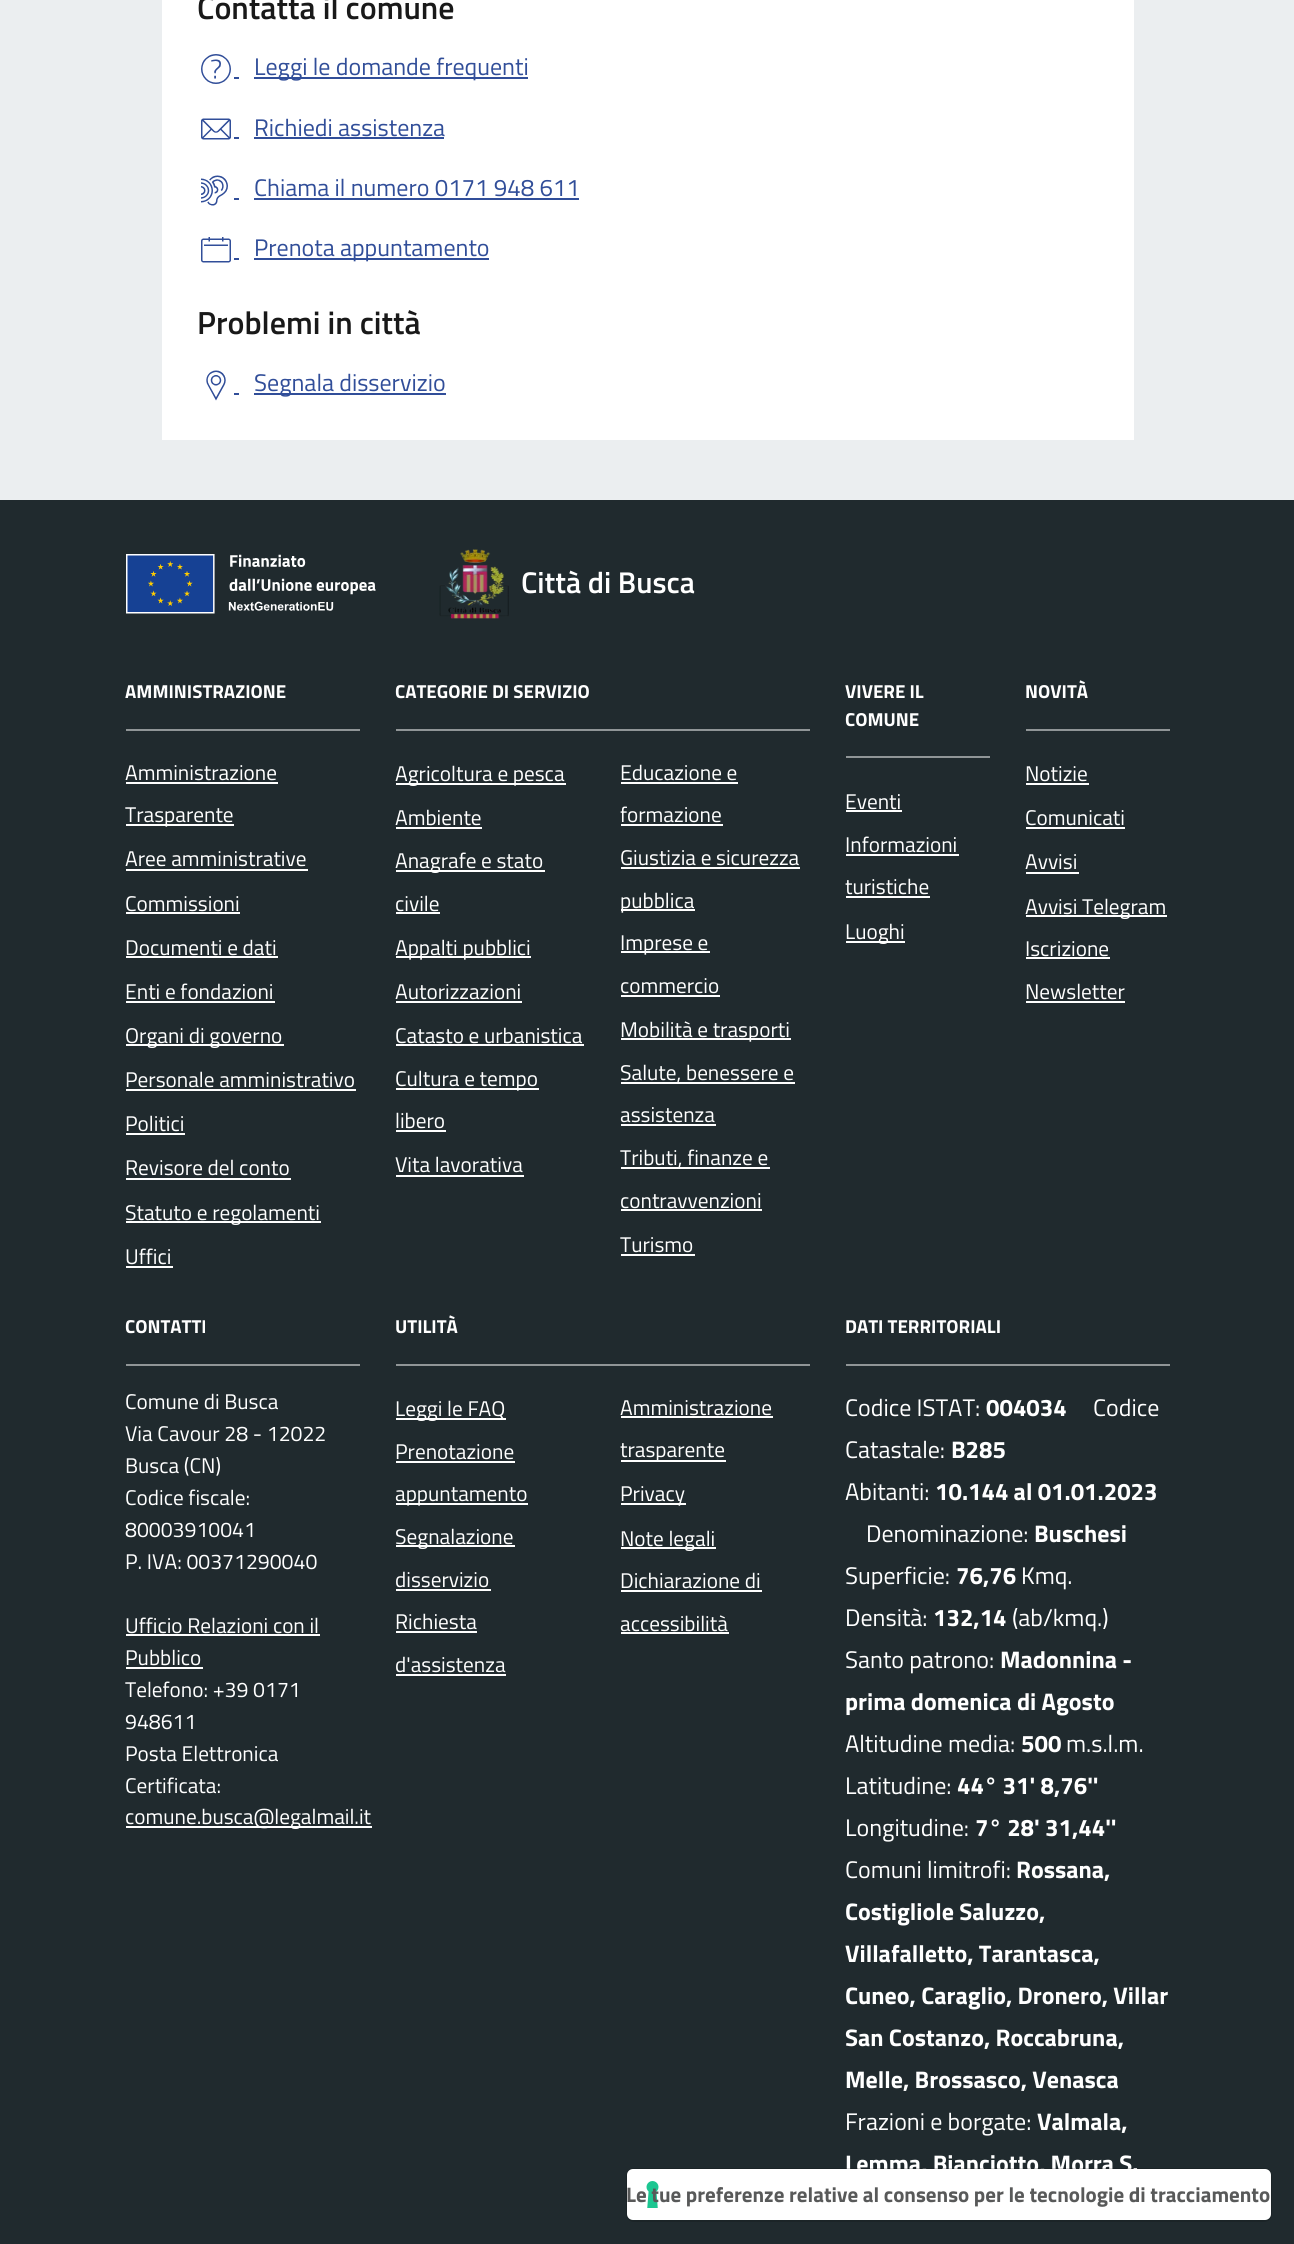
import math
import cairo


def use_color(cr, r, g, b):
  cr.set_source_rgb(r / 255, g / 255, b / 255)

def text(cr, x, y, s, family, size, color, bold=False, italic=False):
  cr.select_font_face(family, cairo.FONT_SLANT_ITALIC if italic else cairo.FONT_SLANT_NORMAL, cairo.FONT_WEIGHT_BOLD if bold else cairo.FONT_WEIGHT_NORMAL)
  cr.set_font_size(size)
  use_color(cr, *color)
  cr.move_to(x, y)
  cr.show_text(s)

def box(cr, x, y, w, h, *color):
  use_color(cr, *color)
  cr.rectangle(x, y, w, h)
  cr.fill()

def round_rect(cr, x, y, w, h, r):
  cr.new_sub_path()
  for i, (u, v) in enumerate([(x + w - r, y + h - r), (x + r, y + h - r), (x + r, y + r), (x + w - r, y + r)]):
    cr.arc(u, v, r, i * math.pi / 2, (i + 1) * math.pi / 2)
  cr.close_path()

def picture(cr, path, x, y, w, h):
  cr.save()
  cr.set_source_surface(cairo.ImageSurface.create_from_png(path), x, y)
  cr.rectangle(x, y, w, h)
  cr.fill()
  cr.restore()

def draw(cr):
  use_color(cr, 235, 238, 240)
  cr.paint()
  box(cr, 162, 0, 972, 440, 255, 255, 255)
  picture(cr, "img_01.png", 201, 54, 30, 30)
  box(cr, 234, 77, 5, 2, 49, 78, 153)
  box(cr, 254, 77, 274, 2, 49, 78, 153)
  picture(cr, "img_02.png", 201, 118, 30, 22)
  box(cr, 254, 137, 190, 2, 49, 78, 153)
  box(cr, 234, 137, 5, 2, 49, 78, 153)
  picture(cr, "img_03.png", 201, 175, 27, 31)
  box(cr, 254, 198, 325, 2, 49, 78, 153)
  box(cr, 234, 198, 5, 2, 49, 78, 153)
  picture(cr, "img_04.png", 201, 237, 30, 26)
  box(cr, 234, 258, 5, 2, 49, 78, 153)
  box(cr, 254, 258, 235, 2, 49, 78, 153)
  picture(cr, "img_05.png", 206, 370, 20, 31)
  box(cr, 234, 393, 5, 2, 49, 78, 153)
  box(cr, 254, 393, 192, 2, 49, 78, 153)
  box(cr, 0, 500, 1294, 1744, 32, 42, 46)
  picture(cr, "img_06.png", 126, 554, 250, 60)
  picture(cr, "img_07.png", 439, 549, 70, 70)
  box(cr, 126, 729, 234, 2, 144, 149, 151)
  box(cr, 126, 782, 152, 2, 255, 255, 255)
  box(cr, 126, 824, 108, 2, 255, 255, 255)
  box(cr, 126, 869, 182, 2, 255, 255, 255)
  box(cr, 126, 912, 114, 2, 255, 255, 255)
  box(cr, 126, 956, 152, 2, 255, 255, 255)
  box(cr, 126, 1001, 149, 2, 255, 255, 255)
  box(cr, 126, 1044, 158, 2, 255, 255, 255)
  box(cr, 126, 1089, 230, 2, 255, 255, 255)
  box(cr, 126, 1133, 59, 2, 255, 255, 255)
  box(cr, 126, 1178, 165, 2, 255, 255, 255)
  box(cr, 126, 1221, 195, 2, 255, 255, 255)
  box(cr, 126, 1266, 47, 2, 255, 255, 255)
  box(cr, 396, 729, 414, 2, 144, 149, 151)
  box(cr, 396, 783, 170, 2, 255, 255, 255)
  box(cr, 396, 827, 86, 2, 255, 255, 255)
  box(cr, 396, 870, 149, 2, 255, 255, 255)
  box(cr, 396, 912, 44, 2, 255, 255, 255)
  box(cr, 396, 956, 135, 2, 255, 255, 255)
  box(cr, 396, 1001, 126, 2, 255, 255, 255)
  box(cr, 396, 1044, 188, 2, 255, 255, 255)
  box(cr, 396, 1088, 143, 2, 255, 255, 255)
  box(cr, 396, 1130, 50, 2, 255, 255, 255)
  box(cr, 396, 1175, 128, 2, 255, 255, 255)
  box(cr, 621, 782, 117, 2, 255, 255, 255)
  box(cr, 621, 824, 102, 2, 255, 255, 255)
  box(cr, 621, 867, 179, 2, 255, 255, 255)
  box(cr, 621, 909, 74, 2, 255, 255, 255)
  box(cr, 621, 951, 89, 2, 255, 255, 255)
  box(cr, 621, 995, 99, 2, 255, 255, 255)
  box(cr, 621, 1038, 170, 2, 255, 255, 255)
  box(cr, 621, 1082, 174, 2, 255, 255, 255)
  box(cr, 621, 1124, 95, 2, 255, 255, 255)
  box(cr, 621, 1167, 149, 2, 255, 255, 255)
  box(cr, 621, 1209, 141, 2, 255, 255, 255)
  box(cr, 621, 1254, 74, 2, 255, 255, 255)
  box(cr, 846, 756, 144, 2, 144, 149, 151)
  box(cr, 846, 810, 56, 2, 255, 255, 255)
  box(cr, 846, 854, 113, 2, 255, 255, 255)
  box(cr, 846, 896, 84, 2, 255, 255, 255)
  box(cr, 846, 941, 59, 2, 255, 255, 255)
  box(cr, 1026, 729, 144, 2, 144, 149, 151)
  box(cr, 1026, 783, 63, 2, 255, 255, 255)
  box(cr, 1026, 827, 99, 2, 255, 255, 255)
  box(cr, 1026, 872, 53, 2, 255, 255, 255)
  box(cr, 1026, 915, 141, 2, 255, 255, 255)
  box(cr, 1026, 957, 84, 2, 255, 255, 255)
  box(cr, 1026, 1001, 99, 2, 255, 255, 255)
  box(cr, 126, 1364, 234, 2, 144, 149, 151)
  box(cr, 126, 1634, 194, 2, 255, 255, 255)
  box(cr, 126, 1667, 77, 2, 255, 255, 255)
  box(cr, 126, 1826, 246, 2, 255, 255, 255)
  box(cr, 396, 1364, 414, 2, 144, 149, 151)
  box(cr, 396, 1418, 110, 2, 255, 255, 255)
  box(cr, 396, 1461, 119, 2, 255, 255, 255)
  box(cr, 396, 1503, 132, 2, 255, 255, 255)
  box(cr, 396, 1545, 119, 2, 255, 255, 255)
  box(cr, 396, 1589, 95, 2, 255, 255, 255)
  box(cr, 396, 1631, 81, 2, 255, 255, 255)
  box(cr, 396, 1674, 110, 2, 255, 255, 255)
  box(cr, 621, 1416, 152, 2, 255, 255, 255)
  box(cr, 621, 1460, 105, 2, 255, 255, 255)
  box(cr, 621, 1503, 65, 2, 255, 255, 255)
  box(cr, 621, 1547, 95, 2, 255, 255, 255)
  box(cr, 621, 1590, 141, 2, 255, 255, 255)
  box(cr, 621, 1632, 108, 2, 255, 255, 255)
  box(cr, 846, 1364, 324, 2, 144, 149, 151)
  text(cr, 197, 19, "Contatta il comune", "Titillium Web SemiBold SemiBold", 32, (25, 25, 25))
  text(cr, 254, 75, "Leggi le domande frequenti", "Titillium Web", 24, (49, 78, 153))
  text(cr, 254, 136, "Richiedi assistenza", "Titillium Web", 24, (49, 78, 153))
  text(cr, 254, 196, "Chiama il numero 0171 948 611", "Titillium Web", 24, (49, 78, 153))
  text(cr, 254, 256, "Prenota appuntamento", "Titillium Web", 24, (49, 78, 153))
  text(cr, 197, 334, "Problemi in città", "Titillium Web SemiBold SemiBold", 32, (25, 25, 25))
  text(cr, 254, 391, "Segnala disservizio", "Titillium Web", 24, (49, 78, 153))
  text(cr, 521, 593, "Città di Busca", "Titillium Web SemiBold SemiBold", 30, (255, 255, 255))
  text(cr, 125, 698, "AMMINISTRAZIONE", "Titillium Web", 18.75, (255, 255, 255), bold=True)
  text(cr, 125, 780, "Amministrazione", "Titillium Web", 21.25, (255, 255, 255))
  text(cr, 125, 822, "Trasparente", "Titillium Web", 21.25, (255, 255, 255))
  text(cr, 125, 866, "Aree amministrative", "Titillium Web", 21.25, (255, 255, 255))
  text(cr, 125, 911, "Commissioni", "Titillium Web", 21.25, (255, 255, 255))
  text(cr, 125, 955, "Documenti e dati", "Titillium Web", 21.25, (255, 255, 255))
  text(cr, 125, 999, "Enti e fondazioni", "Titillium Web", 21.25, (255, 255, 255))
  text(cr, 125, 1043, "Organi di governo", "Titillium Web", 21.25, (255, 255, 255))
  text(cr, 125, 1087, "Personale amministrativo", "Titillium Web", 21.25, (255, 255, 255))
  text(cr, 125, 1131, "Politici", "Titillium Web", 21.25, (255, 255, 255))
  text(cr, 125, 1175, "Revisore del conto", "Titillium Web", 21.25, (255, 255, 255))
  text(cr, 125, 1220, "Statuto e regolamenti", "Titillium Web", 21.25, (255, 255, 255))
  text(cr, 125, 1264, "Uffici", "Titillium Web", 21.25, (255, 255, 255))
  text(cr, 395, 698, "CATEGORIE DI SERVIZIO", "Titillium Web", 18.75, (255, 255, 255), bold=True)
  text(cr, 395, 781, "Agricoltura e pesca", "Titillium Web", 21.25, (255, 255, 255))
  text(cr, 395, 825, "Ambiente", "Titillium Web", 21.25, (255, 255, 255))
  text(cr, 395, 868, "Anagrafe e stato", "Titillium Web", 21.25, (255, 255, 255))
  text(cr, 395, 911, "civile", "Titillium Web", 21.25, (255, 255, 255))
  text(cr, 395, 955, "Appalti pubblici", "Titillium Web", 21.25, (255, 255, 255))
  text(cr, 395, 999, "Autorizzazioni", "Titillium Web", 21.25, (255, 255, 255))
  text(cr, 395, 1043, "Catasto e urbanistica", "Titillium Web", 21.25, (255, 255, 255))
  text(cr, 395, 1086, "Cultura e tempo", "Titillium Web", 21.25, (255, 255, 255))
  text(cr, 395, 1128, "libero", "Titillium Web", 21.25, (255, 255, 255))
  text(cr, 395, 1172, "Vita lavorativa", "Titillium Web", 21.25, (255, 255, 255))
  text(cr, 620, 780, "Educazione e", "Titillium Web", 21.25, (255, 255, 255))
  text(cr, 620, 822, "formazione", "Titillium Web", 21.25, (255, 255, 255))
  text(cr, 620, 865, "Giustizia e sicurezza", "Titillium Web", 21.25, (255, 255, 255))
  text(cr, 620, 908, "pubblica", "Titillium Web", 21.25, (255, 255, 255))
  text(cr, 620, 950, "Imprese e", "Titillium Web", 21.25, (255, 255, 255))
  text(cr, 620, 993, "commercio", "Titillium Web", 21.25, (255, 255, 255))
  text(cr, 620, 1037, "Mobilità e trasporti", "Titillium Web", 21.25, (255, 255, 255))
  text(cr, 620, 1080, "Salute, benessere e", "Titillium Web", 21.25, (255, 255, 255))
  text(cr, 620, 1122, "assistenza", "Titillium Web", 21.25, (255, 255, 255))
  text(cr, 620, 1165, "Tributi, finanze e", "Titillium Web", 21.25, (255, 255, 255))
  text(cr, 620, 1208, "contravvenzioni", "Titillium Web", 21.25, (255, 255, 255))
  text(cr, 620, 1252, "Turismo", "Titillium Web", 21.25, (255, 255, 255))
  text(cr, 845, 698, "VIVERE IL", "Titillium Web", 18.75, (255, 255, 255), bold=True)
  text(cr, 845, 726, "COMUNE", "Titillium Web", 18.75, (255, 255, 255), bold=True)
  text(cr, 845, 809, "Eventi", "Titillium Web", 21.25, (255, 255, 255))
  text(cr, 845, 852, "Informazioni", "Titillium Web", 21.25, (255, 255, 255))
  text(cr, 845, 894, "turistiche", "Titillium Web", 21.25, (255, 255, 255))
  text(cr, 845, 939, "Luoghi", "Titillium Web", 21.25, (255, 255, 255))
  text(cr, 1025, 698, "NOVITÀ", "Titillium Web", 18.75, (255, 255, 255), bold=True)
  text(cr, 1025, 781, "Notizie", "Titillium Web", 21.25, (255, 255, 255))
  text(cr, 1025, 825, "Comunicati", "Titillium Web", 21.25, (255, 255, 255))
  text(cr, 1025, 869, "Avvisi", "Titillium Web", 21.25, (255, 255, 255))
  text(cr, 1025, 914, "Avvisi Telegram", "Titillium Web", 21.25, (255, 255, 255))
  text(cr, 1025, 956, "Iscrizione", "Titillium Web", 21.25, (255, 255, 255))
  text(cr, 1025, 999, "Newsletter", "Titillium Web", 21.25, (255, 255, 255))
  text(cr, 125, 1333, "CONTATTI", "Titillium Web", 18.75, (255, 255, 255), bold=True)
  text(cr, 125, 1409, "Comune di Busca", "Titillium Web", 21.25, (255, 255, 255))
  text(cr, 125, 1441, "Via Cavour 28 - 12022", "Titillium Web", 21.25, (255, 255, 255))
  text(cr, 125, 1473, "Busca (CN)", "Titillium Web", 21.25, (255, 255, 255))
  text(cr, 125, 1505, "Codice fiscale:", "Titillium Web", 21.25, (255, 255, 255))
  text(cr, 125, 1537, "80003910041", "Titillium Web", 21.25, (255, 255, 255))
  text(cr, 125, 1569, "P. IVA: 00371290040", "Titillium Web", 21.25, (255, 255, 255))
  text(cr, 125, 1633, "Ufficio Relazioni con il", "Titillium Web", 21.25, (255, 255, 255))
  text(cr, 125, 1665, "Pubblico", "Titillium Web", 21.25, (255, 255, 255))
  text(cr, 125, 1697, "Telefono: +39 0171", "Titillium Web", 21.25, (255, 255, 255))
  text(cr, 125, 1729, "948611", "Titillium Web", 21.25, (255, 255, 255))
  text(cr, 125, 1761, "Posta Elettronica", "Titillium Web", 21.25, (255, 255, 255))
  text(cr, 125, 1793, "Certificata:", "Titillium Web", 21.25, (255, 255, 255))
  text(cr, 125, 1824, "comune.busca@legalmail.it", "Titillium Web", 21.25, (255, 255, 255))
  text(cr, 395, 1333, "UTILITÀ", "Titillium Web", 18.75, (255, 255, 255), bold=True)
  text(cr, 395, 1416, "Leggi le FAQ", "Titillium Web", 21.25, (255, 255, 255))
  text(cr, 395, 1459, "Prenotazione", "Titillium Web", 21.25, (255, 255, 255))
  text(cr, 395, 1501, "appuntamento", "Titillium Web", 21.25, (255, 255, 255))
  text(cr, 395, 1544, "Segnalazione", "Titillium Web", 21.25, (255, 255, 255))
  text(cr, 395, 1587, "disservizio", "Titillium Web", 21.25, (255, 255, 255))
  text(cr, 395, 1629, "Richiesta", "Titillium Web", 21.25, (255, 255, 255))
  text(cr, 395, 1672, "d'assistenza", "Titillium Web", 21.25, (255, 255, 255))
  text(cr, 620, 1415, "Amministrazione", "Titillium Web", 21.25, (255, 255, 255))
  text(cr, 620, 1457, "trasparente", "Titillium Web", 21.25, (255, 255, 255))
  text(cr, 620, 1501, "Privacy", "Titillium Web", 21.25, (255, 255, 255))
  text(cr, 620, 1546, "Note legali", "Titillium Web", 21.25, (255, 255, 255))
  text(cr, 620, 1588, "Dichiarazione di", "Titillium Web", 21.25, (255, 255, 255))
  text(cr, 620, 1631, "accessibilità", "Titillium Web", 21.25, (255, 255, 255))
  text(cr, 845, 1333, "DATI TERRITORIALI", "Titillium Web", 18.75, (255, 255, 255), bold=True)
  text(cr, 845, 1416, "Codice ISTAT:", "Titillium Web", 24, (255, 255, 255))
  text(cr, 986, 1416, "004034", "Titillium Web", 24, (255, 255, 255), bold=True)
  text(cr, 1093, 1416, "Codice", "Titillium Web", 24, (255, 255, 255))
  text(cr, 845, 1458, "Catastale:", "Titillium Web", 24, (255, 255, 255))
  text(cr, 951, 1458, "B285", "Titillium Web", 24, (255, 255, 255), bold=True)
  text(cr, 845, 1500, "Abitanti:", "Titillium Web", 24, (255, 255, 255))
  text(cr, 935, 1500, "10.144 al 01.01.2023", "Titillium Web", 24, (255, 255, 255), bold=True)
  text(cr, 866, 1542, "Denominazione:", "Titillium Web", 24, (255, 255, 255))
  text(cr, 1034, 1542, "Buschesi", "Titillium Web", 24, (255, 255, 255), bold=True)
  text(cr, 845, 1584, "Superficie:", "Titillium Web", 24, (255, 255, 255))
  text(cr, 956, 1584, "76,76", "Titillium Web", 24, (255, 255, 255), bold=True)
  text(cr, 1021, 1584, "Kmq.", "Titillium Web", 24, (255, 255, 255))
  text(cr, 845, 1626, "Densità:", "Titillium Web", 24, (255, 255, 255))
  text(cr, 933, 1626, "132,14", "Titillium Web", 24, (255, 255, 255), bold=True)
  text(cr, 1012, 1626, "(ab/kmq.)", "Titillium Web", 24, (255, 255, 255))
  text(cr, 845, 1668, "Santo patrono:", "Titillium Web", 24, (255, 255, 255))
  text(cr, 1000, 1668, "Madonnina -", "Titillium Web", 24, (255, 255, 255), bold=True)
  text(cr, 845, 1710, "prima domenica di Agosto", "Titillium Web", 24, (255, 255, 255), bold=True)
  text(cr, 845, 1752, "Altitudine media:", "Titillium Web", 24, (255, 255, 255))
  text(cr, 1021, 1752, "500", "Titillium Web", 24, (255, 255, 255), bold=True)
  text(cr, 1066, 1752, "m.s.l.m.", "Titillium Web", 24, (255, 255, 255))
  text(cr, 845, 1794, "Latitudine:", "Titillium Web", 24, (255, 255, 255))
  text(cr, 957, 1794, "44° 31' 8,76''", "Titillium Web", 24, (255, 255, 255), bold=True)
  text(cr, 845, 1836, "Longitudine:", "Titillium Web", 24, (255, 255, 255))
  text(cr, 975, 1836, "7° 28' 31,44''", "Titillium Web", 24, (255, 255, 255), bold=True)
  text(cr, 845, 1878, "Comuni limitrofi:", "Titillium Web", 24, (255, 255, 255))
  text(cr, 1016, 1878, "Rossana,", "Titillium Web", 24, (255, 255, 255), bold=True)
  text(cr, 845, 1920, "Costigliole Saluzzo,", "Titillium Web", 24, (255, 255, 255), bold=True)
  text(cr, 845, 1962, "Villafalletto, Tarantasca,", "Titillium Web", 24, (255, 255, 255), bold=True)
  text(cr, 845, 2004, "Cuneo, Caraglio, Dronero, Villar", "Titillium Web", 24, (255, 255, 255), bold=True)
  text(cr, 845, 2046, "San Costanzo, Roccabruna,", "Titillium Web", 24, (255, 255, 255), bold=True)
  text(cr, 845, 2088, "Melle, Brossasco, Venasca", "Titillium Web", 24, (255, 255, 255), bold=True)
  text(cr, 845, 2130, "Frazioni e borgate:", "Titillium Web", 24, (255, 255, 255))
  text(cr, 1037, 2130, "Valmala,", "Titillium Web", 24, (255, 255, 255), bold=True)
  text(cr, 845, 2172, "Lemma, Bianciotto, Morra S.", "Titillium Web", 24, (255, 255, 255), bold=True)
  round_rect(cr, 627, 2169, 644, 52, 7)
  cr.set_source_rgba(0, 0, 0, 0.15)
  cr.stroke()
  use_color(cr, 255, 255, 255)
  round_rect(cr, 627, 2169, 644, 51, 6)
  cr.fill()
  picture(cr, "img_08.png", 646, 2181, 13, 27)
  text(cr, 626, 2202, "Le tue preferenze relative al consenso per le tecnologie di tracciamento", "Titillium Web", 21, (88, 89, 89), bold=True)


surface = cairo.ImageSurface(cairo.FORMAT_RGB24, 1294, 2244)
cr = cairo.Context(surface)
options = cairo.FontOptions()
options.set_hint_metrics(cairo.HINT_METRICS_OFF)
options.set_hint_style(cairo.HINT_STYLE_NONE)
cr.set_font_options(options)
cr.set_miter_limit(4)
draw(cr)
surface.write_to_png("out.png")
